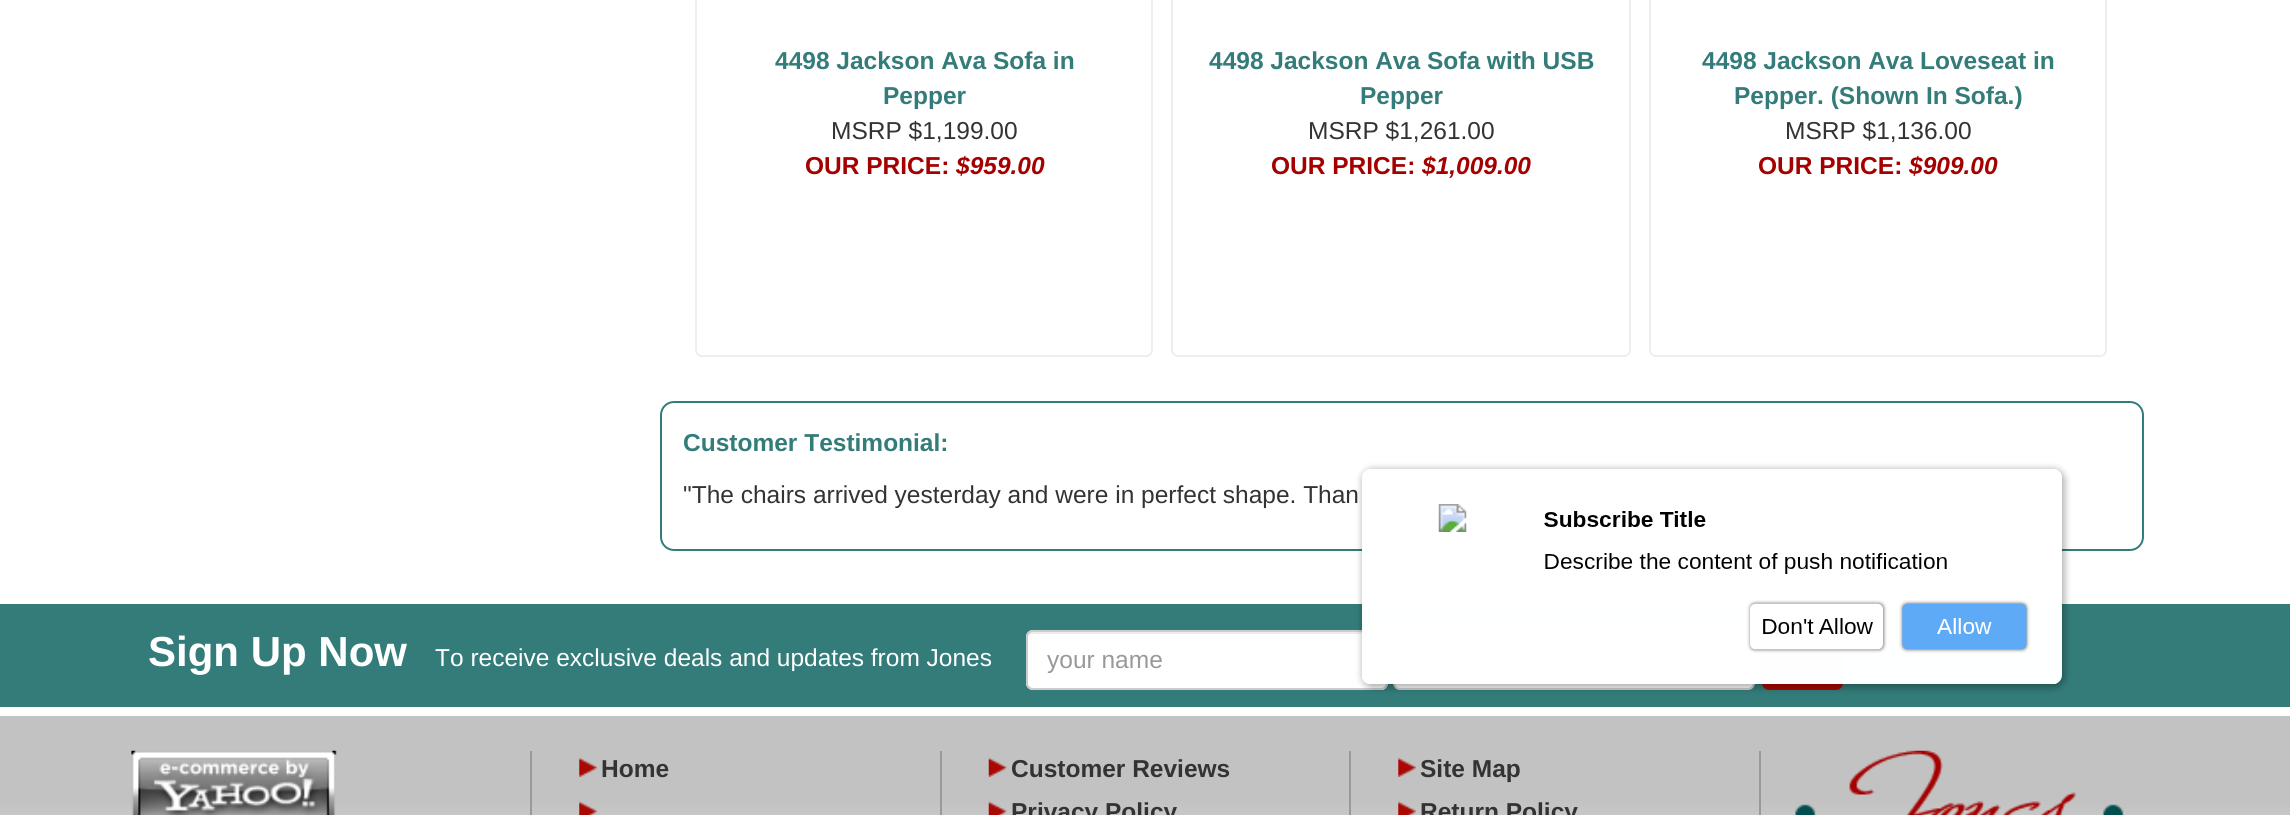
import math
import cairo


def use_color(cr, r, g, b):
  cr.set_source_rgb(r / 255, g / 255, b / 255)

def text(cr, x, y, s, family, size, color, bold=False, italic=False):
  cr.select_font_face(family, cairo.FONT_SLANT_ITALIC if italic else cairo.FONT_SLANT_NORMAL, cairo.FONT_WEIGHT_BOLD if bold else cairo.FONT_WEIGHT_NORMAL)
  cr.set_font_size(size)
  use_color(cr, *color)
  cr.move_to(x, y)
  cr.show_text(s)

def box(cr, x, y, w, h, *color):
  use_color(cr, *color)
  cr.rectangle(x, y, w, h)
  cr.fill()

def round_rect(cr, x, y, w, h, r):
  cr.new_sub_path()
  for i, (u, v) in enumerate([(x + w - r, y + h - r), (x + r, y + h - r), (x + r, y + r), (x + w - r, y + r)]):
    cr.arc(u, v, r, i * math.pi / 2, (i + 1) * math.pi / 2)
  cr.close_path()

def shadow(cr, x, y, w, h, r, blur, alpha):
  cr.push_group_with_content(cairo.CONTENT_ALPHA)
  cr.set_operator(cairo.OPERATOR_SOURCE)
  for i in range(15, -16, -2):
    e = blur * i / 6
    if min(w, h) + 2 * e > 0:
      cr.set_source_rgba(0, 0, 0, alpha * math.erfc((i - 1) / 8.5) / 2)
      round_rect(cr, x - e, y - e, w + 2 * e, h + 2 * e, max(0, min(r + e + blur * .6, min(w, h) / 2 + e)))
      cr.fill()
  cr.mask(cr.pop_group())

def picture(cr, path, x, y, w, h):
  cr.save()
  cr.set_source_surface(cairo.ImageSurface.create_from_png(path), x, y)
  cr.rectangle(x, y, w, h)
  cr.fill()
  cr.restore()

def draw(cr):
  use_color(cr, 255, 255, 255)
  cr.paint()
  round_rect(cr, 696, -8, 456, 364, 6)
  use_color(cr, 238, 238, 238)
  cr.stroke()
  round_rect(cr, 1172, -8, 458, 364, 6)
  cr.stroke()
  round_rect(cr, 1650, -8, 456, 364, 6)
  cr.stroke()
  round_rect(cr, 661, 402, 1482, 148, 13)
  use_color(cr, 51, 124, 122)
  cr.stroke()
  box(cr, 0, 604, 2290, 103, 51, 124, 122)
  use_color(cr, 255, 255, 255)
  round_rect(cr, 1026, 630, 362, 60, 7)
  cr.fill()
  use_color(cr, 236, 236, 236)
  cr.new_path()
  cr.move_to(1032, 634)
  cr.line_to(1381, 634)
  cr.curve_to(1384, 634, 1386, 636, 1386, 639)
  cr.curve_to(1386, 636, 1385, 632, 1381, 632)
  cr.line_to(1032, 632)
  cr.curve_to(1028, 632, 1027, 636, 1027, 639)
  cr.curve_to(1027, 636, 1030, 634, 1032, 634)
  cr.close_path()
  cr.fill()
  round_rect(cr, 1027, 631, 360, 58, 6)
  use_color(cr, 204, 204, 204)
  cr.stroke()
  use_color(cr, 255, 255, 255)
  round_rect(cr, 1394, 631, 360, 58, 6)
  cr.fill_preserve()
  use_color(cr, 204, 204, 204)
  cr.stroke()
  use_color(cr, 169, 8, 3)
  round_rect(cr, 1762, 630, 81, 60, 7)
  cr.fill()
  cr.save()
  cr.set_fill_rule(cairo.FILL_RULE_EVEN_ODD)
  cr.new_path()
  cr.move_to(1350, 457)
  cr.line_to(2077, 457)
  cr.line_to(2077, 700)
  cr.line_to(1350, 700)
  cr.close_path()
  cr.move_to(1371, 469)
  cr.line_to(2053, 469)
  cr.curve_to(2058, 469, 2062, 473, 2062, 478)
  cr.line_to(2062, 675)
  cr.curve_to(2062, 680, 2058, 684, 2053, 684)
  cr.line_to(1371, 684)
  cr.curve_to(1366, 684, 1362, 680, 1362, 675)
  cr.line_to(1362, 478)
  cr.curve_to(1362, 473, 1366, 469, 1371, 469)
  cr.close_path()
  cr.clip()
  use_color(cr, 0, 0, 0)
  shadow(cr, 1362, 469, 703, 219, 11, 3.5, 0.3)
  cr.restore()
  cr.set_source_rgba(1, 1, 1, 0.95)
  round_rect(cr, 1362, 469, 700, 215, 9)
  cr.fill()
  picture(cr, "img_01.png", 1362, 485, 699, 199)
  gradient = cairo.LinearGradient(1145, 716, 1145, 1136)
  gradient.add_color_stop_rgba(0, 0.761, 0.761, 0.761, 1)
  gradient.add_color_stop_rgba(0.2, 0.761, 0.761, 0.761, 1)
  gradient.add_color_stop_rgba(0.58, 0.953, 0.953, 0.953, 1)
  gradient.add_color_stop_rgba(0.73, 0.992, 0.992, 0.992, 1)
  gradient.add_color_stop_rgba(0.77, 1, 1, 1, 1)
  gradient.add_color_stop_rgba(1, 1, 1, 1, 1)
  cr.set_source(gradient)
  cr.rectangle(0, 716, 2290, 99)
  cr.fill()
  picture(cr, "img_02.png", 131, 750, 206, 65)
  box(cr, 530, 751, 2, 64, 153, 153, 153)
  box(cr, 940, 751, 2, 64, 153, 153, 153)
  picture(cr, "img_03.png", 579, 757, 18, 20)
  picture(cr, "img_04.png", 579, 801, 18, 14)
  box(cr, 1349, 751, 2, 64, 153, 153, 153)
  picture(cr, "img_05.png", 988, 757, 19, 20)
  picture(cr, "img_06.png", 988, 801, 19, 14)
  box(cr, 1759, 751, 2, 64, 153, 153, 153)
  picture(cr, "img_03.png", 1398, 757, 18, 20)
  picture(cr, "img_04.png", 1398, 801, 18, 14)
  picture(cr, "img_07.png", 1795, 750, 329, 65)
  text(cr, 775, 69, "4498 Jackson Ava Sofa in", "Liberation Sans", 24.5, (51, 124, 122), bold=True)
  text(cr, 883, 104, "Pepper", "Liberation Sans", 24.5, (51, 124, 122), bold=True)
  text(cr, 831, 139, "MSRP $1,199.00", "Liberation Sans", 24.5, (51, 51, 51))
  text(cr, 805, 174, "OUR PRICE:", "Liberation Sans", 24.5, (165, 0, 0), bold=True)
  text(cr, 956, 174, "$959.00", "Liberation Sans", 24.5, (165, 0, 0), bold=True, italic=True)
  text(cr, 1209, 69, "4498 Jackson Ava Sofa with USB", "Liberation Sans", 24.5, (51, 124, 122), bold=True)
  text(cr, 1360, 104, "Pepper", "Liberation Sans", 24.5, (51, 124, 122), bold=True)
  text(cr, 1308, 139, "MSRP $1,261.00", "Liberation Sans", 24.5, (51, 51, 51))
  text(cr, 1271, 174, "OUR PRICE:", "Liberation Sans", 24.5, (165, 0, 0), bold=True)
  text(cr, 1422, 174, "$1,009.00", "Liberation Sans", 24.5, (165, 0, 0), bold=True, italic=True)
  text(cr, 1702, 69, "4498 Jackson Ava Loveseat in", "Liberation Sans", 24.5, (51, 124, 122), bold=True)
  text(cr, 1734, 104, "Pepper. (Shown In Sofa.)", "Liberation Sans", 24.5, (51, 124, 122), bold=True)
  text(cr, 1785, 139, "MSRP $1,136.00", "Liberation Sans", 24.5, (51, 51, 51))
  text(cr, 1758, 174, "OUR PRICE:", "Liberation Sans", 24.5, (165, 0, 0), bold=True)
  text(cr, 1909, 174, "$909.00", "Liberation Sans", 24.5, (165, 0, 0), bold=True, italic=True)
  text(cr, 683, 451, "Customer Testimonial:", "Liberation Sans", 24.5, (51, 124, 122), bold=True)
  text(cr, 683, 503, "\"The chairs arrived yesterday and were in perfect shape. Than", "Liberation Sans", 24.5, (51, 51, 51))
  text(cr, 148, 666, "Sign Up Now", "Liberation Sans", 42, (255, 255, 255), bold=True)
  text(cr, 435, 666, "To receive exclusive deals and updates from Jones", "Liberation Sans", 24.5, (255, 255, 255))
  text(cr, 1047, 668, "your name", "Liberation Sans", 24.5, (153, 153, 153))
  text(cr, 601, 777, "Home", "Liberation Sans", 24.5, (51, 51, 51), bold=True)
  text(cr, 1011, 777, "Customer Reviews", "Liberation Sans", 24.5, (51, 51, 51), bold=True)
  text(cr, 1011, 820, "Privacy Policy", "Liberation Sans", 24.5, (51, 51, 51), bold=True)
  text(cr, 1420, 777, "Site Map", "Liberation Sans", 24.5, (51, 51, 51), bold=True)
  text(cr, 1420, 820, "Return Policy", "Liberation Sans", 24.5, (51, 51, 51), bold=True)


surface = cairo.ImageSurface(cairo.FORMAT_RGB24, 2290, 815)
cr = cairo.Context(surface)
options = cairo.FontOptions()
options.set_hint_metrics(cairo.HINT_METRICS_OFF)
options.set_hint_style(cairo.HINT_STYLE_NONE)
cr.set_font_options(options)
cr.set_miter_limit(4)
draw(cr)
surface.write_to_png("out.png")
